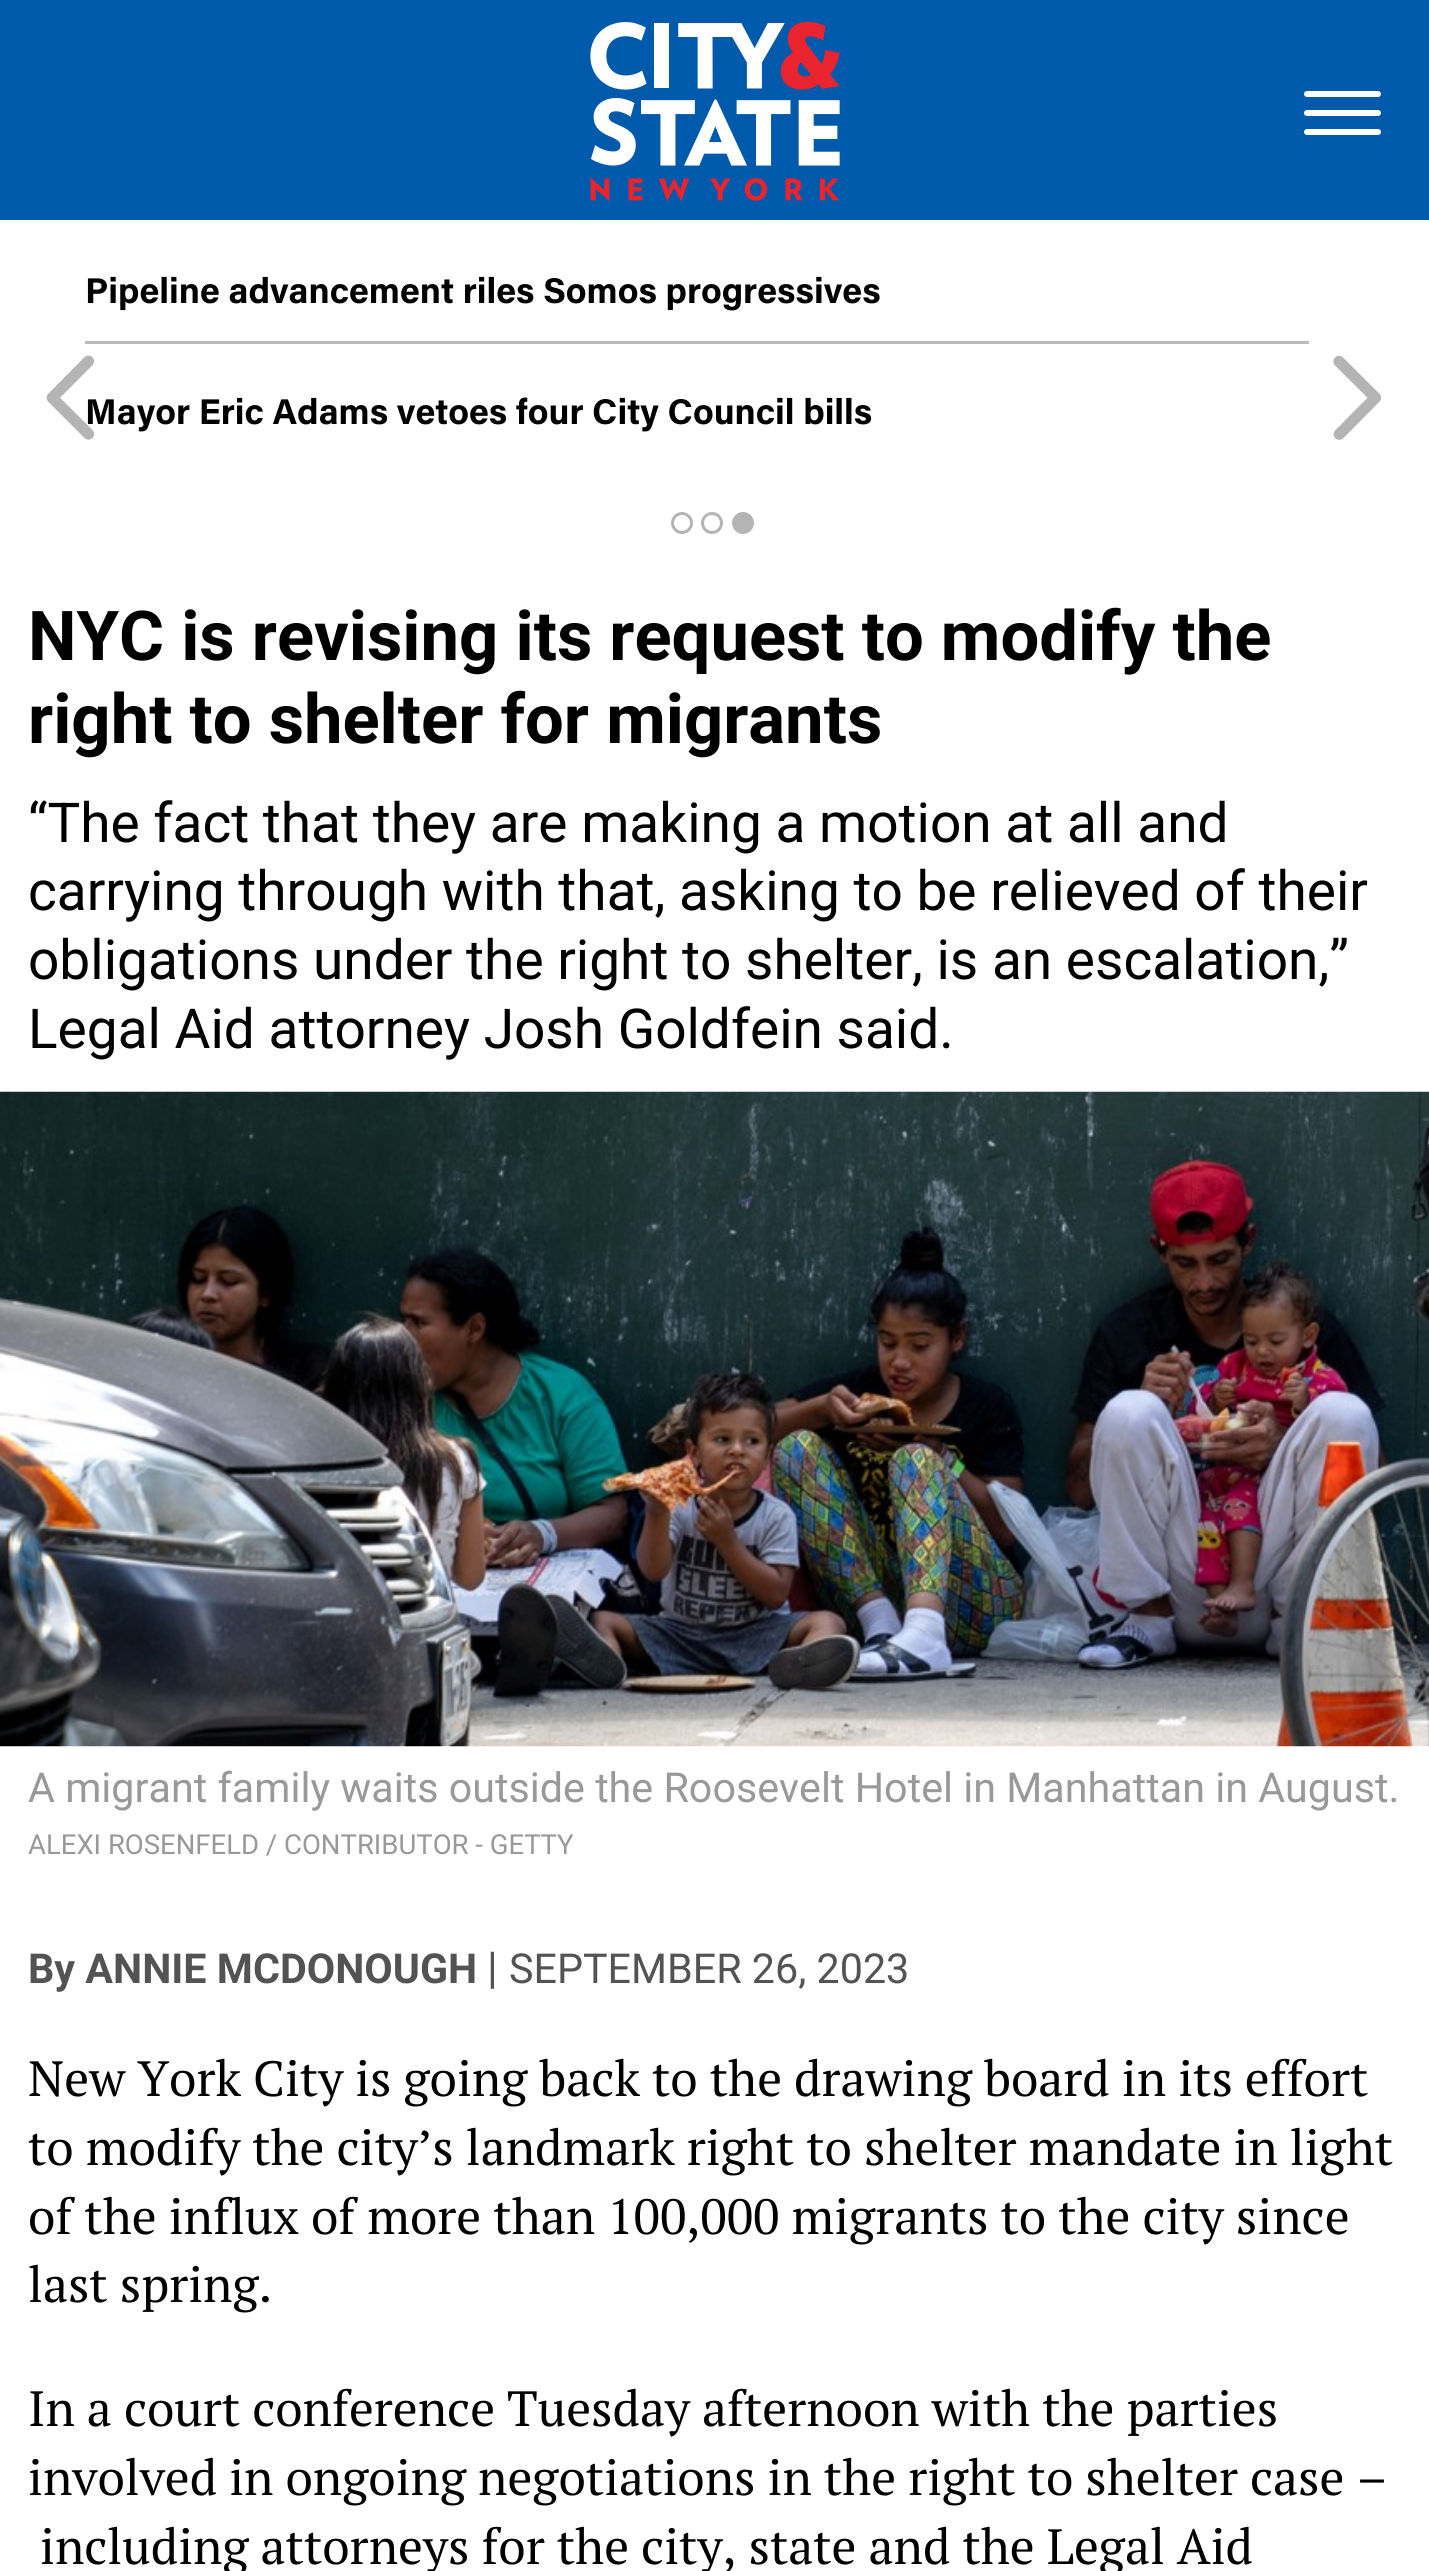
import math
import cairo


def use_color(cr, r, g, b):
  cr.set_source_rgb(r / 255, g / 255, b / 255)

def text(cr, x, y, s, family, size, color, bold=False, italic=False):
  cr.select_font_face(family, cairo.FONT_SLANT_ITALIC if italic else cairo.FONT_SLANT_NORMAL, cairo.FONT_WEIGHT_BOLD if bold else cairo.FONT_WEIGHT_NORMAL)
  cr.set_font_size(size)
  use_color(cr, *color)
  cr.move_to(x, y)
  cr.show_text(s)

def box(cr, x, y, w, h, *color):
  use_color(cr, *color)
  cr.rectangle(x, y, w, h)
  cr.fill()

def round_rect(cr, x, y, w, h, r):
  cr.new_sub_path()
  for i, (u, v) in enumerate([(x + w - r, y + h - r), (x + r, y + h - r), (x + r, y + r), (x + w - r, y + r)]):
    cr.arc(u, v, r, i * math.pi / 2, (i + 1) * math.pi / 2)
  cr.close_path()

def picture(cr, path, x, y, w, h):
  cr.save()
  cr.set_source_surface(cairo.ImageSurface.create_from_png(path), x, y)
  cr.rectangle(x, y, w, h)
  cr.fill()
  cr.restore()

def draw(cr):
  use_color(cr, 255, 255, 255)
  cr.paint()
  box(cr, 0, 0, 1429, 220, 0, 90, 171)
  picture(cr, "img_01.png", 590, 22, 250, 179)
  use_color(cr, 255, 255, 255)
  round_rect(cr, 1304, 110, 77, 6, 3)
  cr.fill()
  round_rect(cr, 1304, 91, 77, 6, 3)
  cr.fill()
  round_rect(cr, 1304, 129, 77, 6, 3)
  cr.fill()
  box(cr, 85, 341, 1224, 3, 187, 187, 187)
  picture(cr, "img_03.png", 1333, 355, 48, 85)
  cr.arc(682, 523, 9.5, 0, 2 * math.pi)
  use_color(cr, 180, 180, 180)
  cr.set_line_width(3)
  cr.stroke()
  cr.arc(712, 523, 9.5, 0, 2 * math.pi)
  cr.stroke()
  cr.arc(743, 523, 9.5, 0, 2 * math.pi)
  cr.fill_preserve()
  cr.stroke()
  picture(cr, "img_04.png", 0, 1091, 1429, 656)
  text(cr, 85, 303, "Pipeline advancement riles Somos progressives", "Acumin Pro", 35.75, (0, 0, 0), bold=True)
  text(cr, 85, 424, "Mayor Eric Adams vetoes four City Council bills", "Acumin Pro", 35.75, (0, 0, 0), bold=True)
  picture(cr, "img_02.png", 46, 355, 49, 85)
  text(cr, 28, 660, "NYC is revising its request to modify the", "Roboto", 68.75, (0, 0, 0), bold=True)
  text(cr, 28, 743, "right to shelter for migrants", "Roboto", 68.75, (0, 0, 0), bold=True)
  text(cr, 28, 842, "“The fact that they are making a motion at all and", "Roboto", 55, (0, 0, 0))
  text(cr, 28, 910, "carrying through with that, asking to be relieved of their", "Roboto", 55, (0, 0, 0))
  text(cr, 28, 979, "obligations under the right to shelter, is an escalation,”", "Roboto", 55, (0, 0, 0))
  text(cr, 28, 1048, "Legal Aid attorney Josh Goldfein said.", "Roboto", 55, (0, 0, 0))
  text(cr, 28, 1802, "A migrant family waits outside the Roosevelt Hotel in Manhattan in August.", "Roboto", 41.25, (153, 153, 153))
  text(cr, 28, 1854, "ALEXI ROSENFELD / CONTRIBUTOR - GETTY", "Roboto", 27.5, (153, 153, 153))
  text(cr, 28, 1983, "By ANNIE MCDONOUGH", "Roboto", 41.25, (83, 83, 83), bold=True)
  text(cr, 487, 1983, "|", "Roboto", 44, (83, 83, 83))
  text(cr, 509, 1983, "SEPTEMBER 26, 2023", "Roboto", 41.25, (83, 83, 83))
  text(cr, 28, 2096, "New York City is going back to the drawing board in its effort", "PT Serif", 49.5, (0, 0, 0))
  text(cr, 28, 2165, "to modify the city’s landmark right to shelter mandate in light", "PT Serif", 49.5, (0, 0, 0))
  text(cr, 28, 2234, "of the influx of more than 100,000 migrants to the city since", "PT Serif", 49.5, (0, 0, 0))
  text(cr, 28, 2302, "last spring.", "PT Serif", 49.5, (0, 0, 0))
  text(cr, 28, 2426, "In a court conference Tuesday afternoon with the parties", "PT Serif", 49.5, (0, 0, 0))
  text(cr, 28, 2495, "involved in ongoing negotiations in the right to shelter case –", "PT Serif", 49.5, (0, 0, 0))
  text(cr, 40, 2564, "including attorneys for the city, state and the Legal Aid", "PT Serif", 49.5, (0, 0, 0))


surface = cairo.ImageSurface(cairo.FORMAT_RGB24, 1429, 2571)
cr = cairo.Context(surface)
options = cairo.FontOptions()
options.set_hint_metrics(cairo.HINT_METRICS_OFF)
options.set_hint_style(cairo.HINT_STYLE_NONE)
cr.set_font_options(options)
cr.set_miter_limit(4)
draw(cr)
surface.write_to_png("out.png")
